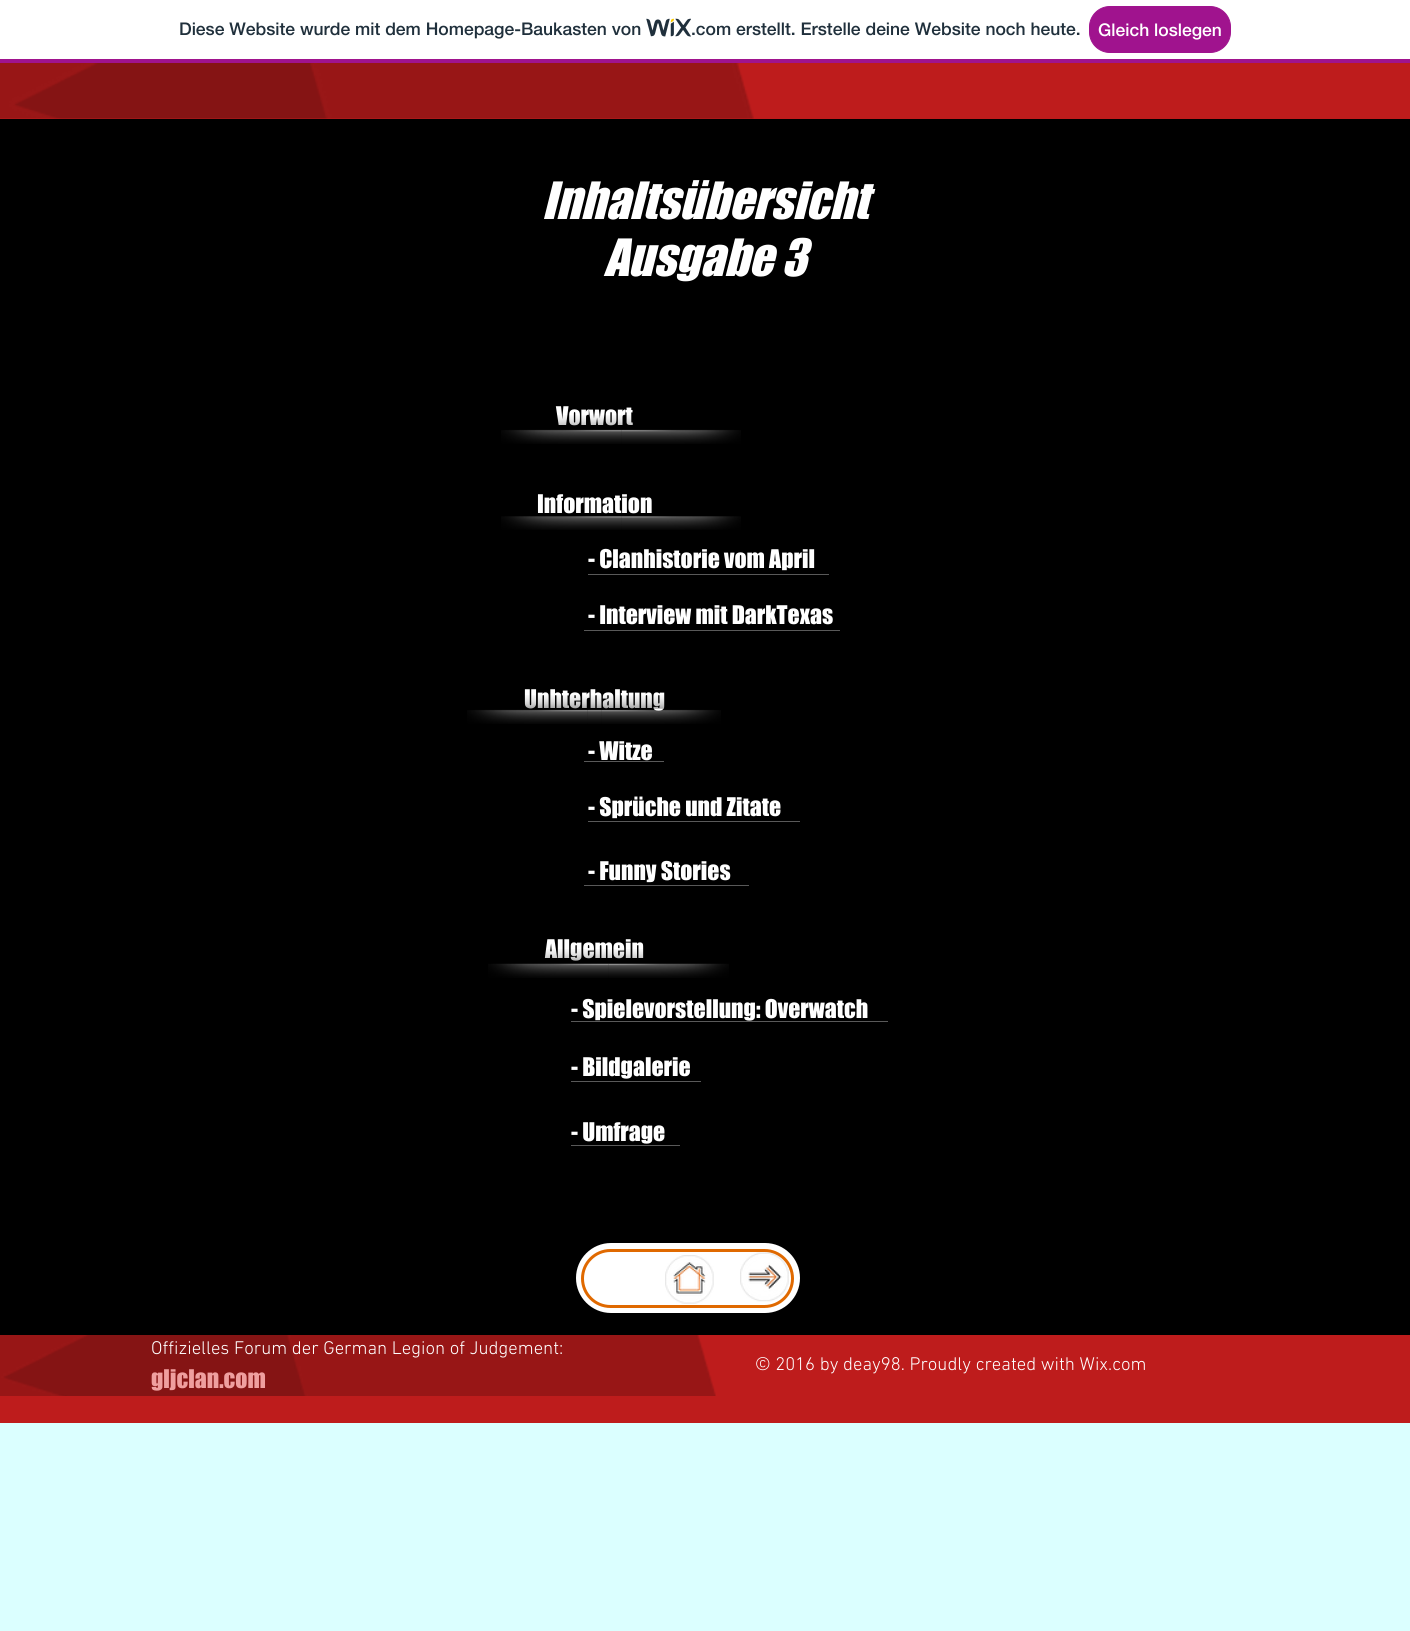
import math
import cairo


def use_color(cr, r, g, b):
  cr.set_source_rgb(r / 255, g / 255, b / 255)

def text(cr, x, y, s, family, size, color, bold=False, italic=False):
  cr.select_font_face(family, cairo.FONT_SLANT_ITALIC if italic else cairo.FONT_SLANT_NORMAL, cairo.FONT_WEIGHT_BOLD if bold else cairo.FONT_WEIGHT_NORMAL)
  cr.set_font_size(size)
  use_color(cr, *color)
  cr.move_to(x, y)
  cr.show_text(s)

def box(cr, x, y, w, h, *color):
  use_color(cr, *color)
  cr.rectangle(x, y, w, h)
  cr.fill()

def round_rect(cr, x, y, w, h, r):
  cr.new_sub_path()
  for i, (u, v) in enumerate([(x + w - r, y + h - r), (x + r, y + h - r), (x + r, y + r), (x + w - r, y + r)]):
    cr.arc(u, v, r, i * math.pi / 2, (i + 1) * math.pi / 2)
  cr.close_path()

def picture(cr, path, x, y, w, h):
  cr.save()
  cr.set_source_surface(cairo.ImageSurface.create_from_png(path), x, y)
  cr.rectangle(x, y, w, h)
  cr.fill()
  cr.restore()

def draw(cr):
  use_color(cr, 219, 255, 255)
  cr.paint()
  box(cr, 0, 0, 1410, 59, 255, 255, 255)
  box(cr, 0, 59, 1410, 4, 160, 19, 142)
  picture(cr, "img_01.png", 646, 18, 45, 19)
  round_rect(cr, 1089.5, 6.5, 141, 46, 20.5)
  cr.fill_preserve()
  cr.set_line_width(1)
  cr.stroke()
  box(cr, 0, 63, 1410, 56, 190, 28, 28)
  picture(cr, "img_02.png", 0, 63, 754, 56)
  box(cr, 0, 119, 1410, 1216, 0, 0, 0)
  picture(cr, "img_06.png", 621, 516, 120, 14)
  picture(cr, "img_05.png", 501, 516, 121, 14)
  box(cr, 588, 574, 241, 1, 89, 89, 89)
  box(cr, 584, 630, 256, 1, 89, 89, 89)
  box(cr, 584, 761, 80, 1, 89, 89, 89)
  box(cr, 588, 821, 212, 1, 89, 89, 89)
  box(cr, 584, 885, 165, 1, 89, 89, 89)
  box(cr, 571, 1021, 317, 1, 89, 89, 89)
  box(cr, 571, 1081, 130, 1, 89, 89, 89)
  box(cr, 571, 1145, 109, 1, 89, 89, 89)
  use_color(cr, 255, 255, 255)
  round_rect(cr, 574.5, 1241.5, 227, 73, 36.5)
  cr.fill_preserve()
  use_color(cr, 0, 0, 0)
  cr.set_line_width(3)
  cr.stroke()
  round_rect(cr, 582.5, 1250.5, 210, 56, 28)
  use_color(cr, 224, 105, 0)
  cr.stroke()
  picture(cr, "img_12.png", 665, 1255, 49, 49)
  picture(cr, "img_13.png", 740, 1252, 49, 50)
  box(cr, 0, 1335, 1410, 88, 190, 28, 28)
  picture(cr, "img_14.png", 0, 1335, 716, 61)
  text(cr, 179, 35, "Diese Website wurde mit dem Homepage-Baukasten von", "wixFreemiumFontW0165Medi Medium", 17.5, (32, 48, 60))
  text(cr, 691, 35, ".com erstellt. Erstelle deine Website noch heute.", "wixFreemiumFontW0165Medi Medium", 17.5, (32, 48, 60))
  text(cr, 1098, 36, "Gleich loslegen", "wixFreemiumFontW0165Medi Medium", 17.5, (255, 255, 255))
  text(cr, 542, 219, "Inhaltsübersicht", "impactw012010", 47.5, (255, 255, 255), italic=True)
  text(cr, 604, 276, "Ausgabe 3", "impactw012010", 47.5, (255, 255, 255), italic=True)
  text(cr, 556, 425, "Vorwort", "impactw012010", 23.75, (255, 255, 255))
  picture(cr, "img_04.png", 621, 415, 120, 29)
  picture(cr, "img_03.png", 501, 415, 121, 29)
  text(cr, 537, 513, "Information", "impactw012010", 23.75, (255, 255, 255))
  text(cr, 588, 568, "- Clanhistorie vom April", "impactw012010", 23.75, (255, 255, 255))
  text(cr, 588, 624, "- Interview mit DarkTexas", "impactw012010", 23.75, (255, 255, 255))
  text(cr, 524, 708, "Unhterhaltung", "impactw012010", 23.75, (255, 255, 255))
  picture(cr, "img_08.png", 587, 695, 15, 29)
  picture(cr, "img_07.png", 467, 695, 121, 29)
  picture(cr, "img_09.png", 601, 695, 120, 29)
  text(cr, 588, 760, "- Witze", "impactw012010", 23.75, (255, 255, 255))
  text(cr, 588, 816, "- Sprüche und Zitate", "impactw012010", 23.75, (255, 255, 255))
  text(cr, 588, 880, "- Funny Stories", "impactw012010", 23.75, (255, 255, 255))
  text(cr, 545, 958, "Allgemein", "impactw012010", 23.75, (255, 255, 255))
  picture(cr, "img_11.png", 608, 949, 121, 29)
  picture(cr, "img_10.png", 488, 949, 121, 29)
  text(cr, 571, 1018, "- Spielevorstellung: Overwatch", "impactw012010", 23.75, (255, 255, 255))
  text(cr, 571, 1076, "- Bildgalerie", "impactw012010", 23.75, (255, 255, 255))
  text(cr, 571, 1141, "- Umfrage", "impactw012010", 23.75, (255, 255, 255))
  text(cr, 151, 1354, "Offizielles Forum der German Legion of Judgement:", "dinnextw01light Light", 18.75, (255, 255, 255))
  text(cr, 151, 1388, "gljclan.com", "impactw012010", 23.75, (239, 159, 159))
  text(cr, 755, 1370, "© 2016 by deay98. Proudly created with Wix.com", "dinnextw01light Light", 18.75, (255, 255, 255))


surface = cairo.ImageSurface(cairo.FORMAT_RGB24, 1410, 1631)
cr = cairo.Context(surface)
options = cairo.FontOptions()
options.set_hint_metrics(cairo.HINT_METRICS_OFF)
options.set_hint_style(cairo.HINT_STYLE_NONE)
cr.set_font_options(options)
cr.set_miter_limit(4)
draw(cr)
surface.write_to_png("out.png")
